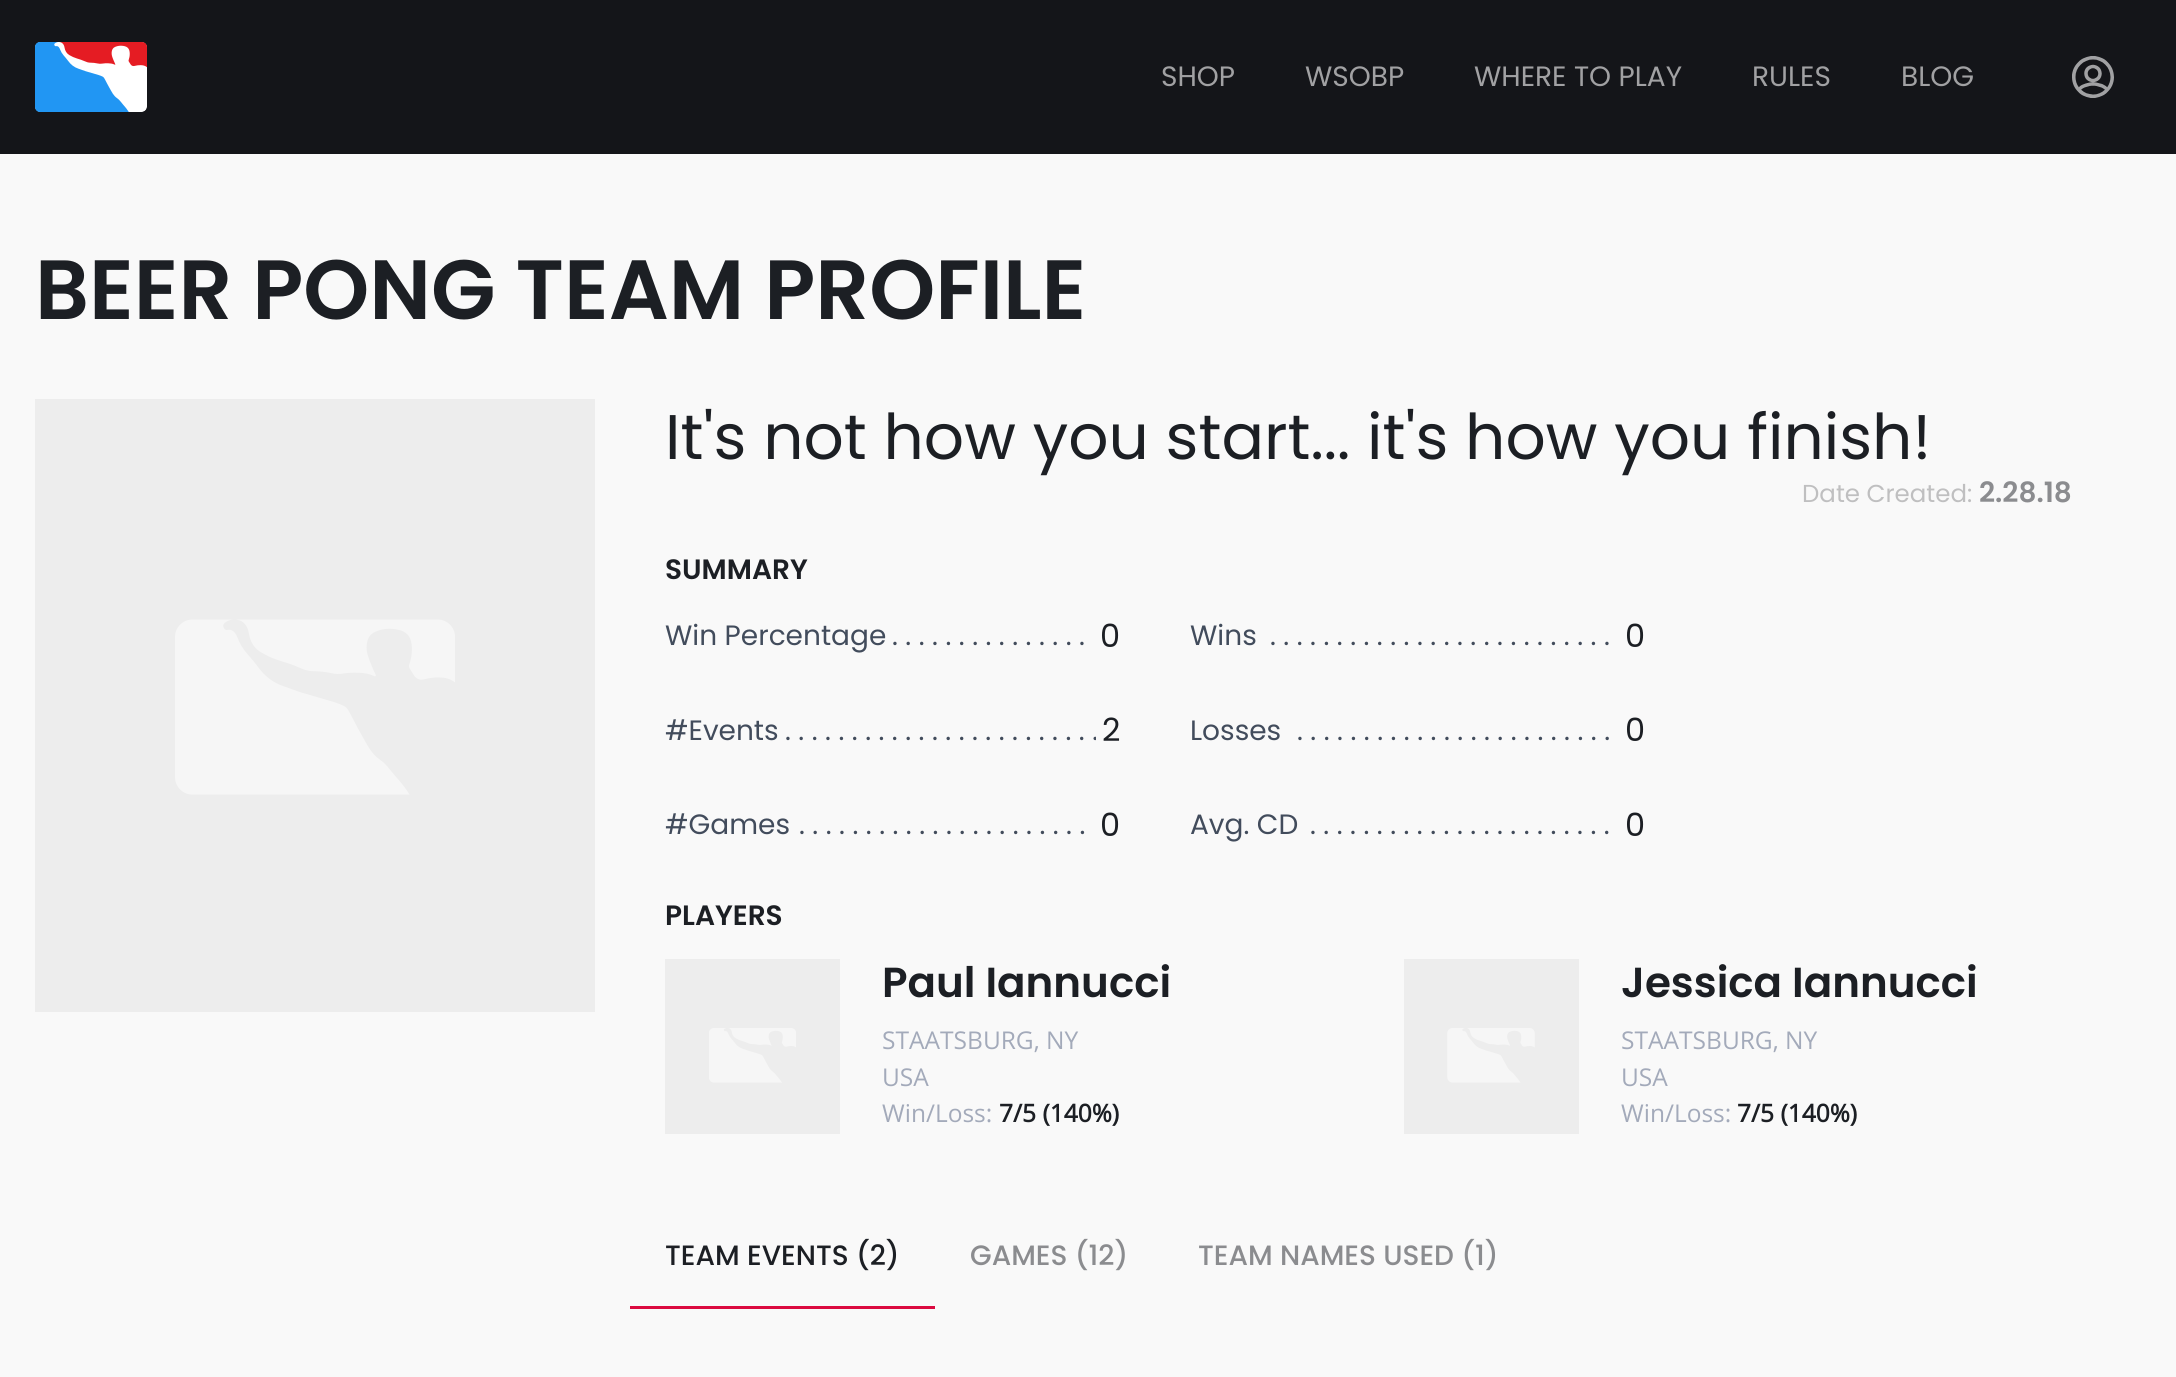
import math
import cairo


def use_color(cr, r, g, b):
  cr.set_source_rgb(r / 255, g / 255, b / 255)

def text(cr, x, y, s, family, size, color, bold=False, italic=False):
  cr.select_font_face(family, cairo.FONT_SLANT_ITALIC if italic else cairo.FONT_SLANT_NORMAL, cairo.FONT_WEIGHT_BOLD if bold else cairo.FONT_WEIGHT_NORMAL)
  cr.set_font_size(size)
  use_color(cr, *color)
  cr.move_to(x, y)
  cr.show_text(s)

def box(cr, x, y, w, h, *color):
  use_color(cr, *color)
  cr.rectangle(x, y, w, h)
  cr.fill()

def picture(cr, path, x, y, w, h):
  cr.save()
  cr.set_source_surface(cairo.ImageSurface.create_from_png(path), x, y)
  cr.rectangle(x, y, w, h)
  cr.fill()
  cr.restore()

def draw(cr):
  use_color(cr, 20, 21, 25)
  cr.paint()
  picture(cr, "img_01.png", 35, 42, 112, 70)
  picture(cr, "img_02.png", 2072, 56, 42, 42)
  box(cr, 0, 154, 2176, 1223, 249, 249, 249)
  box(cr, 35, 399, 560, 613, 237, 237, 237)
  picture(cr, "img_03.png", 175, 619, 280, 176)
  box(cr, 665, 959, 175, 175, 237, 237, 237)
  picture(cr, "img_04.png", 709, 1028, 87, 55)
  box(cr, 1404, 959, 175, 175, 237, 237, 237)
  picture(cr, "img_05.png", 1447, 1028, 88, 55)
  box(cr, 630, 1306, 305, 3, 219, 10, 64)
  text(cr, 1161, 86, "SHOP", "Poppins", 28, (161, 161, 163))
  text(cr, 1305, 86, "WSOBP", "Poppins", 28, (161, 161, 163))
  text(cr, 1474, 86, "WHERE TO PLAY", "Poppins", 28, (161, 161, 163))
  text(cr, 1752, 86, "RULES", "Poppins", 28, (161, 161, 163))
  text(cr, 1901, 86, "BLOG", "Poppins", 28, (161, 161, 163))
  text(cr, 35, 319, "BEER PONG TEAM PROFILE", "Poppins SemiBold", 84, (28, 31, 36))
  text(cr, 665, 459, "It's not how you start... it's how you finish!", "Poppins", 63, (28, 31, 36))
  text(cr, 1802, 502, "Date Created:", "Poppins", 24.5, (191, 191, 192))
  text(cr, 1979, 502, "2.28.18", "Poppins SemiBold", 28, (139, 140, 143))
  text(cr, 665, 579, "SUMMARY", "Poppins SemiBold", 28, (28, 31, 36))
  text(cr, 665, 645, "Win Percentage", "Poppins", 28, (66, 76, 92))
  text(cr, 892, 645, ". . . . . . . . . . . . . . .", "Poppins", 28, (66, 76, 92))
  text(cr, 1100, 647, "0", "Poppins", 32, (28, 31, 36))
  text(cr, 665, 740, "#Events", "Poppins", 28, (66, 76, 92))
  text(cr, 785, 740, ". . . . . . . . . . . . . . . . . . . . . . . .", "Poppins", 28, (66, 76, 92))
  box(cr, 1096, 736, 1, 4, 249, 249, 249)
  text(cr, 1102, 741, "2", "Poppins", 32, (28, 31, 36))
  text(cr, 665, 834, "#Games", "Poppins", 28, (66, 76, 92))
  text(cr, 799, 834, ". . . . . . . . . . . . . . . . . . . . . .", "Poppins", 28, (66, 76, 92))
  text(cr, 1100, 836, "0", "Poppins", 32, (28, 31, 36))
  text(cr, 1190, 645, "Wins", "Poppins", 28, (66, 76, 92))
  text(cr, 1270, 645, ". . . . . . . . . . . . . . . . . . . . . . . . . .", "Poppins", 28, (66, 76, 92))
  text(cr, 1625, 647, "0", "Poppins", 32, (28, 31, 36))
  text(cr, 1190, 740, "Losses", "Poppins", 28, (66, 76, 92))
  text(cr, 1297, 740, ". . . . . . . . . . . . . . . . . . . . . . . .", "Poppins", 28, (66, 76, 92))
  text(cr, 1625, 741, "0", "Poppins", 32, (28, 31, 36))
  text(cr, 1190, 834, "Avg. CD", "Poppins", 28, (66, 76, 92))
  text(cr, 1310, 834, ". . . . . . . . . . . . . . . . . . . . . . .", "Poppins", 28, (66, 76, 92))
  text(cr, 1625, 836, "0", "Poppins", 32, (28, 31, 36))
  text(cr, 665, 925, "PLAYERS", "Poppins SemiBold", 28, (28, 31, 36))
  text(cr, 882, 997, "Paul Iannucci", "Poppins SemiBold", 42, (28, 31, 36))
  text(cr, 882, 1049, "STAATSBURG, NY", "Open Sans", 24.5, (163, 170, 186))
  text(cr, 882, 1086, "USA", "Open Sans", 24.5, (163, 170, 186))
  text(cr, 882, 1122, "Win/Loss:", "Open Sans", 24.5, (163, 170, 186))
  text(cr, 999, 1122, "7/5 (140%)", "Open Sans", 24.5, (28, 31, 36), bold=True)
  text(cr, 1621, 997, "Jessica Iannucci", "Poppins SemiBold", 42, (28, 31, 36))
  text(cr, 1621, 1049, "STAATSBURG, NY", "Open Sans", 24.5, (163, 170, 186))
  text(cr, 1621, 1086, "USA", "Open Sans", 24.5, (163, 170, 186))
  text(cr, 1621, 1122, "Win/Loss:", "Open Sans", 24.5, (163, 170, 186))
  text(cr, 1737, 1122, "7/5 (140%)", "Open Sans", 24.5, (28, 31, 36), bold=True)
  text(cr, 665, 1265, "TEAM EVENTS (2)", "Poppins Medium", 28, (28, 31, 36))
  text(cr, 970, 1265, "GAMES (12)", "Poppins Medium", 28, (139, 140, 143))
  text(cr, 1198, 1265, "TEAM NAMES USED (1)", "Poppins Medium", 28, (139, 140, 143))


surface = cairo.ImageSurface(cairo.FORMAT_RGB24, 2176, 1377)
cr = cairo.Context(surface)
options = cairo.FontOptions()
options.set_hint_metrics(cairo.HINT_METRICS_OFF)
options.set_hint_style(cairo.HINT_STYLE_NONE)
cr.set_font_options(options)
cr.set_miter_limit(4)
draw(cr)
surface.write_to_png("out.png")
